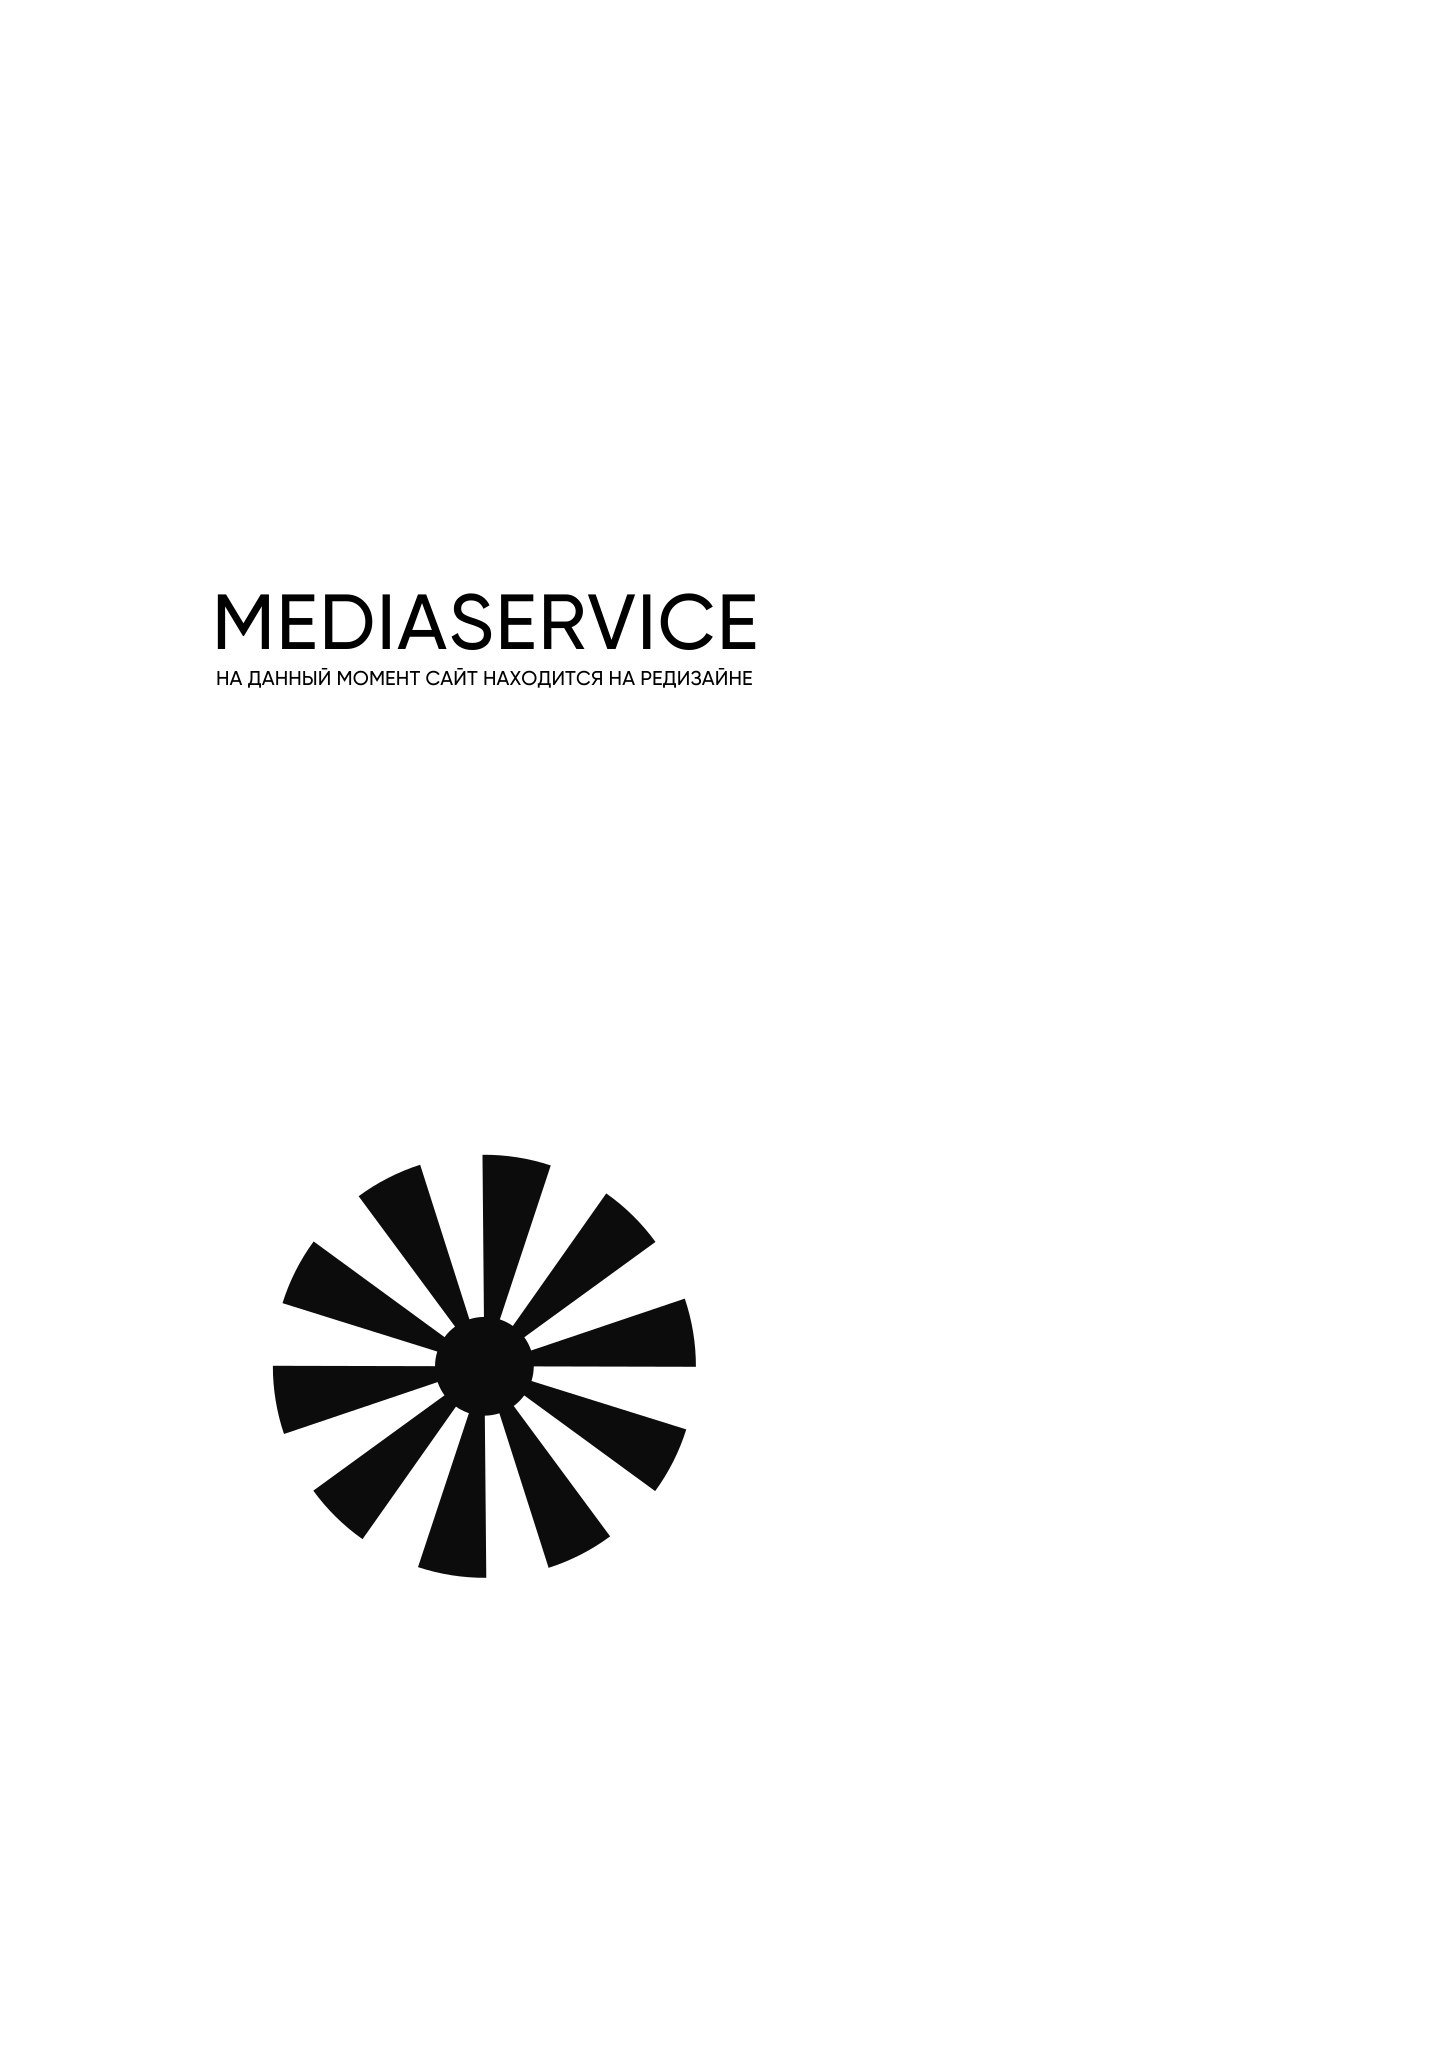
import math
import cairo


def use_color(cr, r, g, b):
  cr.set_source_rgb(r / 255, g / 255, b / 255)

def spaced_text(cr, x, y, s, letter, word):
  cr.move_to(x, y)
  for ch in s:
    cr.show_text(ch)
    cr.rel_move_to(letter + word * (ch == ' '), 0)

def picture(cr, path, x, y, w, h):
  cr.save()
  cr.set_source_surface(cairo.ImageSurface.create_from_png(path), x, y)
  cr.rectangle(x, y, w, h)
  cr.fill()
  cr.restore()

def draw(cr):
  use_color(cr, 255, 255, 255)
  cr.paint()
  picture(cr, "img_01.png", 272, 1154, 424, 424)
  cr.select_font_face("Gilroy Medium")
  cr.set_font_size(78)
  use_color(cr, 0, 0, 0)
  spaced_text(cr, 212, 649, "MEDIASERVICE", 1.5, 0)
  cr.set_font_size(20)
  spaced_text(cr, 216, 685, "НА ДАННЫЙ МОМЕНТ САЙТ НАХОДИТСЯ НА РЕДИЗАЙНЕ", 0.1, 0)


surface = cairo.ImageSurface(cairo.FORMAT_RGB24, 1451, 2047)
cr = cairo.Context(surface)
options = cairo.FontOptions()
options.set_hint_metrics(cairo.HINT_METRICS_OFF)
options.set_hint_style(cairo.HINT_STYLE_NONE)
cr.set_font_options(options)
cr.set_miter_limit(4)
draw(cr)
surface.write_to_png("out.png")
